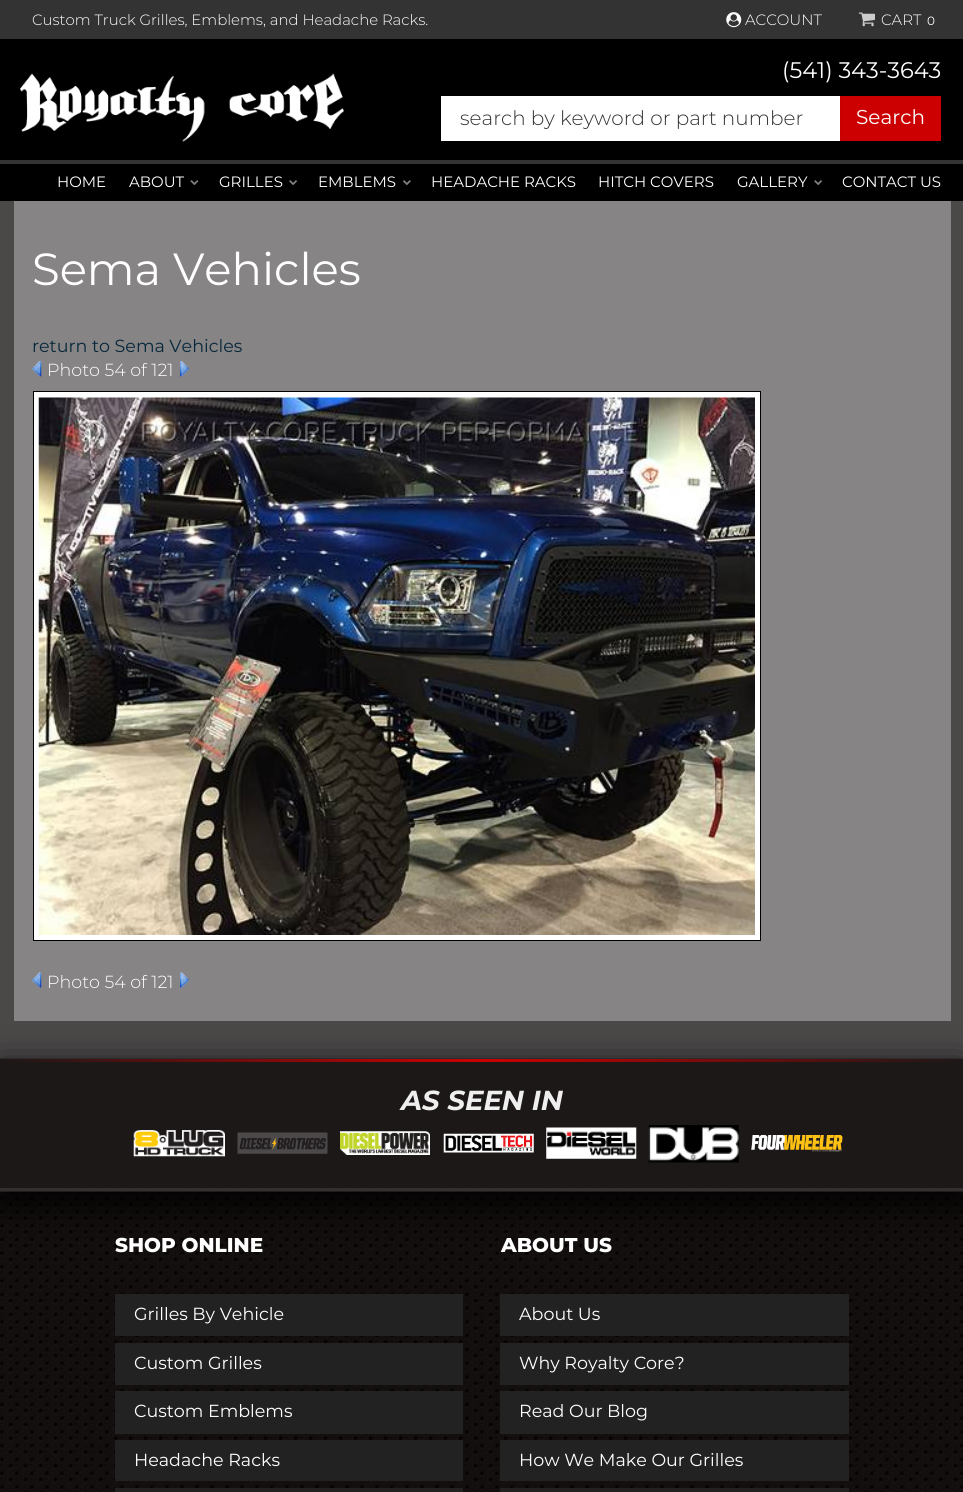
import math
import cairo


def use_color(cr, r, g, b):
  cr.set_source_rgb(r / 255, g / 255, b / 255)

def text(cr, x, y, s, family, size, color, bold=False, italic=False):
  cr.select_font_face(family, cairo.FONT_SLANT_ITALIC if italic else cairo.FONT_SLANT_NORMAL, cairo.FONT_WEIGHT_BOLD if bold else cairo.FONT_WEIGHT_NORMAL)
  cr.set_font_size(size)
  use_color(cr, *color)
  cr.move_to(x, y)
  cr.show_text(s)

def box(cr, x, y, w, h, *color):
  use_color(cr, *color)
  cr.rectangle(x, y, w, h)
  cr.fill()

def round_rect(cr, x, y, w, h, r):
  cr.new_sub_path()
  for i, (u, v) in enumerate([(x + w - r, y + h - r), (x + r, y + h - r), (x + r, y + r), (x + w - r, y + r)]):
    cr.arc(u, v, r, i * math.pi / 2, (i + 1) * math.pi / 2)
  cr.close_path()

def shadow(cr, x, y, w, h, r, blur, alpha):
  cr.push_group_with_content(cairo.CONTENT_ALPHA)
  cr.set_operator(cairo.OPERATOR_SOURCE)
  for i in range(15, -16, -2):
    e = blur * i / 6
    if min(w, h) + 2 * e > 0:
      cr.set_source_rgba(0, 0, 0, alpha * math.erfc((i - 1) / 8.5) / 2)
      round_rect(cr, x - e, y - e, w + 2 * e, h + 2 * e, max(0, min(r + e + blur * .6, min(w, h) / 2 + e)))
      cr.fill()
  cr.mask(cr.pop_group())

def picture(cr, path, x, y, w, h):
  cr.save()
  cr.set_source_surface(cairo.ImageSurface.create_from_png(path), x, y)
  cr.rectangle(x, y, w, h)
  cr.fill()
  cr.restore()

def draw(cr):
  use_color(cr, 75, 72, 72)
  cr.paint()
  box(cr, 0, 0, 963, 39, 51, 51, 51)
  picture(cr, "img_01.png", 726, 12, 16, 16)
  box(cr, 0, 39, 963, 162, 0, 0, 0)
  picture(cr, "img_02.png", 858, 12, 17, 15)
  picture(cr, "img_03.png", 20, 73, 324, 69)
  box(cr, 840, 96, 101, 45, 204, 0, 0)
  cr.set_source_rgba(0, 0, 0, 0.04)
  cr.set_fill_rule(cairo.FILL_RULE_EVEN_ODD)
  cr.new_path()
  cr.move_to(440, 96)
  cr.line_to(440, 144)
  cr.line_to(841, 144)
  cr.line_to(841, 96)
  cr.close_path()
  cr.move_to(441, 96)
  cr.line_to(441, 141)
  cr.line_to(840, 141)
  cr.line_to(840, 96)
  cr.close_path()
  cr.fill()
  box(cr, 441, 96, 399, 45, 255, 255, 255)
  box(cr, 0, 160, 963, 4, 51, 51, 51)
  picture(cr, "img_04.png", 190, 180, 9, 6)
  picture(cr, "img_05.png", 289, 180, 8, 6)
  picture(cr, "img_06.png", 403, 180, 8, 6)
  picture(cr, "img_05.png", 814, 180, 8, 6)
  box(cr, 14, 201, 937, 820, 134, 132, 132)
  picture(cr, "img_07.png", 32, 361, 10, 16)
  picture(cr, "img_08.png", 180, 361, 9, 16)
  use_color(cr, 255, 255, 255)
  cr.rectangle(33.5, 391.5, 727, 549)
  cr.fill_preserve()
  use_color(cr, 0, 0, 0)
  cr.set_line_width(1)
  cr.stroke()
  picture(cr, "img_09.png", 38, 397, 717, 538)
  picture(cr, "img_10.png", 32, 972, 10, 16)
  picture(cr, "img_11.png", 180, 972, 9, 16)
  picture(cr, "img_12.png", 0, 1058, 963, 434)
  use_color(cr, 0, 0, 0)
  shadow(cr, 0, 1071, 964, 133, 0, 19, 1)
  box(cr, 0, 1062, 963, 129, 29, 24, 24)
  cr.set_source_rgba(1, 1, 1, 0.1)
  cr.rectangle(0, 1188, 963, 4)
  cr.fill()
  gradient = cairo.LinearGradient(0, 1060, 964, 1060)
  gradient.add_color_stop_rgba(0, 0.114, 0.094, 0.094, 1)
  gradient.add_color_stop_rgba(0.5, 0.8, 0, 0, 1)
  gradient.add_color_stop_rgba(1, 0.114, 0.094, 0.094, 1)
  cr.set_source(gradient)
  cr.rectangle(0, 1059, 963, 3)
  cr.fill()
  picture(cr, "img_13.png", 133, 1130, 92, 27)
  picture(cr, "img_14.png", 237, 1132, 91, 22)
  picture(cr, "img_15.png", 340, 1131, 90, 24)
  picture(cr, "img_16.png", 443, 1133, 91, 20)
  picture(cr, "img_17.png", 546, 1127, 91, 32)
  picture(cr, "img_18.png", 648, 1125, 91, 38)
  picture(cr, "img_19.png", 751, 1135, 92, 17)
  box(cr, 115, 1294, 348, 42, 34, 34, 34)
  box(cr, 115, 1343, 348, 42, 34, 34, 34)
  box(cr, 115, 1391, 348, 43, 34, 34, 34)
  box(cr, 115, 1440, 348, 41, 34, 34, 34)
  box(cr, 115, 1488, 348, 4, 34, 34, 34)
  box(cr, 500, 1294, 349, 42, 34, 34, 34)
  box(cr, 500, 1343, 349, 42, 34, 34, 34)
  box(cr, 500, 1391, 349, 43, 34, 34, 34)
  box(cr, 500, 1440, 349, 41, 34, 34, 34)
  box(cr, 500, 1488, 349, 4, 34, 34, 34)
  text(cr, 32, 25, "Custom Truck Grilles, Emblems, and Headache Racks.", "Montserrat Light", 14.9, (255, 255, 255))
  text(cr, 745, 25, "ACCOUNT", "Montserrat Light", 15, (255, 255, 255))
  text(cr, 881, 25, "CART", "Montserrat Light", 15, (255, 255, 255))
  text(cr, 927, 25, "0", "Montserrat", 12, (255, 255, 255))
  text(cr, 782, 78, "(541) 343-3643", "Montserrat", 22.5, (255, 255, 255))
  text(cr, 460, 125, "search by keyword or part number", "Montserrat Light", 20, (51, 51, 51))
  text(cr, 856, 124, "Search", "Montserrat", 20, (255, 255, 255))
  text(cr, 57, 187, "HOME", "Montserrat", 15, (255, 255, 255))
  text(cr, 129, 187, "ABOUT", "Montserrat", 15, (255, 255, 255))
  text(cr, 219, 187, "GRILLES", "Montserrat", 15, (255, 255, 255))
  text(cr, 318, 187, "EMBLEMS", "Montserrat", 15, (255, 255, 255))
  text(cr, 431, 187, "HEADACHE RACKS", "Montserrat", 15, (255, 255, 255))
  text(cr, 598, 187, "HITCH COVERS", "Montserrat", 15, (255, 255, 255))
  text(cr, 737, 187, "GALLERY", "Montserrat", 15, (255, 255, 255))
  text(cr, 842, 187, "CONTACT US", "Montserrat", 15, (255, 255, 255))
  text(cr, 32, 285, "Sema Vehicles", "Montserrat", 45, (255, 255, 255))
  text(cr, 32, 352, "return to Sema Vehicles", "Montserrat", 17.5, (7, 40, 60))
  text(cr, 47, 376, "Photo 54 of 121", "Montserrat Light", 17.5, (255, 255, 255))
  text(cr, 47, 988, "Photo 54 of 121", "Montserrat Light", 17.5, (255, 255, 255))
  text(cr, 401, 1110, "AS SEEN IN", "Montserrat", 27.5, (239, 239, 239), bold=True, italic=True)
  text(cr, 115, 1252, "SHOP ONLINE", "Montserrat ExtraBold", 20, (255, 255, 255))
  text(cr, 134, 1320, "Grilles By Vehicle", "Montserrat", 17.5, (255, 255, 255))
  text(cr, 134, 1369, "Custom Grilles", "Montserrat", 17.5, (255, 255, 255))
  text(cr, 134, 1417, "Custom Emblems", "Montserrat", 17.5, (255, 255, 255))
  text(cr, 134, 1466, "Headache Racks", "Montserrat", 17.5, (255, 255, 255))
  text(cr, 501, 1252, "ABOUT US", "Montserrat ExtraBold", 20, (255, 255, 255))
  text(cr, 519, 1320, "About Us", "Montserrat", 17.5, (255, 255, 255))
  text(cr, 519, 1369, "Why Royalty Core?", "Montserrat", 17.5, (255, 255, 255))
  text(cr, 519, 1417, "Read Our Blog", "Montserrat", 17.5, (255, 255, 255))
  text(cr, 519, 1466, "How We Make Our Grilles", "Montserrat", 17.5, (255, 255, 255))


surface = cairo.ImageSurface(cairo.FORMAT_RGB24, 963, 1492)
cr = cairo.Context(surface)
options = cairo.FontOptions()
options.set_hint_metrics(cairo.HINT_METRICS_OFF)
options.set_hint_style(cairo.HINT_STYLE_NONE)
cr.set_font_options(options)
cr.set_miter_limit(4)
draw(cr)
surface.write_to_png("out.png")
